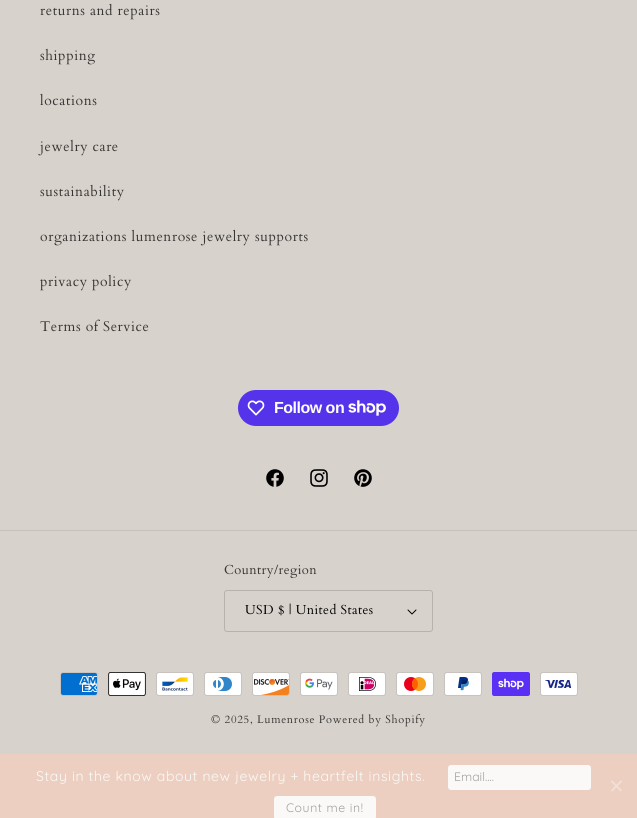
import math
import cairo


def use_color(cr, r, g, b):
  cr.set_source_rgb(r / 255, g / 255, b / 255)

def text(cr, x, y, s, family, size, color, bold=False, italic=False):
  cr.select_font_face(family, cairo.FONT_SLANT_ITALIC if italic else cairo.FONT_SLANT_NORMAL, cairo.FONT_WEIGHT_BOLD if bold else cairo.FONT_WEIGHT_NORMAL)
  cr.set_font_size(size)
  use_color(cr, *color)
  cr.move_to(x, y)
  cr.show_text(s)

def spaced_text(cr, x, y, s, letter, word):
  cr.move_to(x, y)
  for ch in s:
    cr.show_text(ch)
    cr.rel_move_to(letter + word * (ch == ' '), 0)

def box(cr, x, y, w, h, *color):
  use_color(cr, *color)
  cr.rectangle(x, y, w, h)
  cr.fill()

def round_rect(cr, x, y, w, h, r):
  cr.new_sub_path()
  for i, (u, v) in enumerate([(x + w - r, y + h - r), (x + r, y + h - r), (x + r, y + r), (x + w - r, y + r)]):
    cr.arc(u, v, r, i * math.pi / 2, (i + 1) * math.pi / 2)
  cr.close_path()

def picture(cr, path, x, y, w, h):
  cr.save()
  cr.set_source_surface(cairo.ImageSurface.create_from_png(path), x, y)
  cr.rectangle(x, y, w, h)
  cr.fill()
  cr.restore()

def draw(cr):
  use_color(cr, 216, 210, 204)
  cr.paint()
  use_color(cr, 84, 51, 235)
  round_rect(cr, 238, 390, 161, 36, 18)
  cr.fill()
  picture(cr, "img_01.png", 247, 400, 18, 16)
  picture(cr, "img_02.png", 348, 400, 38, 16)
  picture(cr, "img_03.png", 266, 469, 18, 18)
  picture(cr, "img_04.png", 310, 469, 18, 18)
  picture(cr, "img_05.png", 354, 469, 18, 18)
  box(cr, 0, 530, 637, 1, 199, 193, 188)
  picture(cr, "img_06.png", 407, 609, 10, 6)
  round_rect(cr, 224.5, 590.5, 208, 41, 2.5)
  use_color(cr, 184, 178, 173)
  cr.set_line_width(1)
  cr.stroke()
  picture(cr, "img_07.png", 60, 672, 38, 24)
  picture(cr, "img_08.png", 108, 672, 38, 24)
  picture(cr, "img_09.png", 156, 672, 38, 24)
  picture(cr, "img_10.png", 204, 672, 38, 24)
  picture(cr, "img_11.png", 252, 672, 38, 24)
  picture(cr, "img_12.png", 300, 672, 38, 24)
  picture(cr, "img_13.png", 348, 672, 38, 24)
  picture(cr, "img_14.png", 396, 672, 38, 24)
  picture(cr, "img_15.png", 444, 672, 38, 24)
  picture(cr, "img_16.png", 492, 672, 38, 24)
  picture(cr, "img_17.png", 540, 672, 38, 24)
  box(cr, 0, 754, 637, 64, 236, 207, 193)
  use_color(cr, 250, 249, 247)
  round_rect(cr, 448, 765, 143, 25, 3)
  cr.fill()
  round_rect(cr, 274, 796, 102, 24, 3)
  cr.fill()
  picture(cr, "img_18.png", 611, 780, 11, 12)
  cr.select_font_face("Cardo")
  cr.set_font_size(14)
  use_color(cr, 54, 53, 51)
  spaced_text(cr, 40, 15, "returns and repairs", 0.6, 0)
  spaced_text(cr, 40, 60, "shipping", 0.6, 0)
  spaced_text(cr, 40, 105, "locations", 0.6, 0)
  spaced_text(cr, 40, 151, "jewelry care", 0.6, 0)
  spaced_text(cr, 40, 196, "sustainability", 0.6, 0)
  spaced_text(cr, 40, 241, "organizations lumenrose jewelry supports", 0.6, 0)
  spaced_text(cr, 40, 286, "privacy policy", 0.6, 0)
  spaced_text(cr, 40, 331, "Terms of Service", 0.6, 0)
  cr.select_font_face("Liberation Sans", cairo.FONT_SLANT_NORMAL, cairo.FONT_WEIGHT_BOLD)
  cr.set_font_size(16)
  use_color(cr, 255, 255, 255)
  spaced_text(cr, 274, 413, "Follow on", -0.5, 0)
  cr.select_font_face("Cardo")
  cr.set_font_size(13)
  use_color(cr, 54, 53, 51)
  spaced_text(cr, 224, 574, "Country/region", 0.4, 0)
  use_color(cr, 0, 0, 0)
  spaced_text(cr, 245, 614, "USD $ | United States", 0.4, 0)
  cr.set_font_size(11)
  use_color(cr, 54, 53, 51)
  spaced_text(cr, 211, 723, "© 2025, Lumenrose Powered by Shopify", 0.7, 0)
  cr.select_font_face("Quicksand Light")
  cr.set_font_size(14)
  use_color(cr, 250, 249, 247)
  spaced_text(cr, 36, 781, "Stay in the know about new jewelry + heartfelt insights.", 0.6, 0)
  text(cr, 454, 781, "Email....", "Quicksand Light", 12.25, (160, 161, 160))
  spaced_text(cr, 286, 812, "Count me in!", 0.6, 0)


surface = cairo.ImageSurface(cairo.FORMAT_RGB24, 637, 818)
cr = cairo.Context(surface)
options = cairo.FontOptions()
options.set_hint_metrics(cairo.HINT_METRICS_OFF)
options.set_hint_style(cairo.HINT_STYLE_NONE)
cr.set_font_options(options)
cr.set_miter_limit(4)
draw(cr)
surface.write_to_png("out.png")
